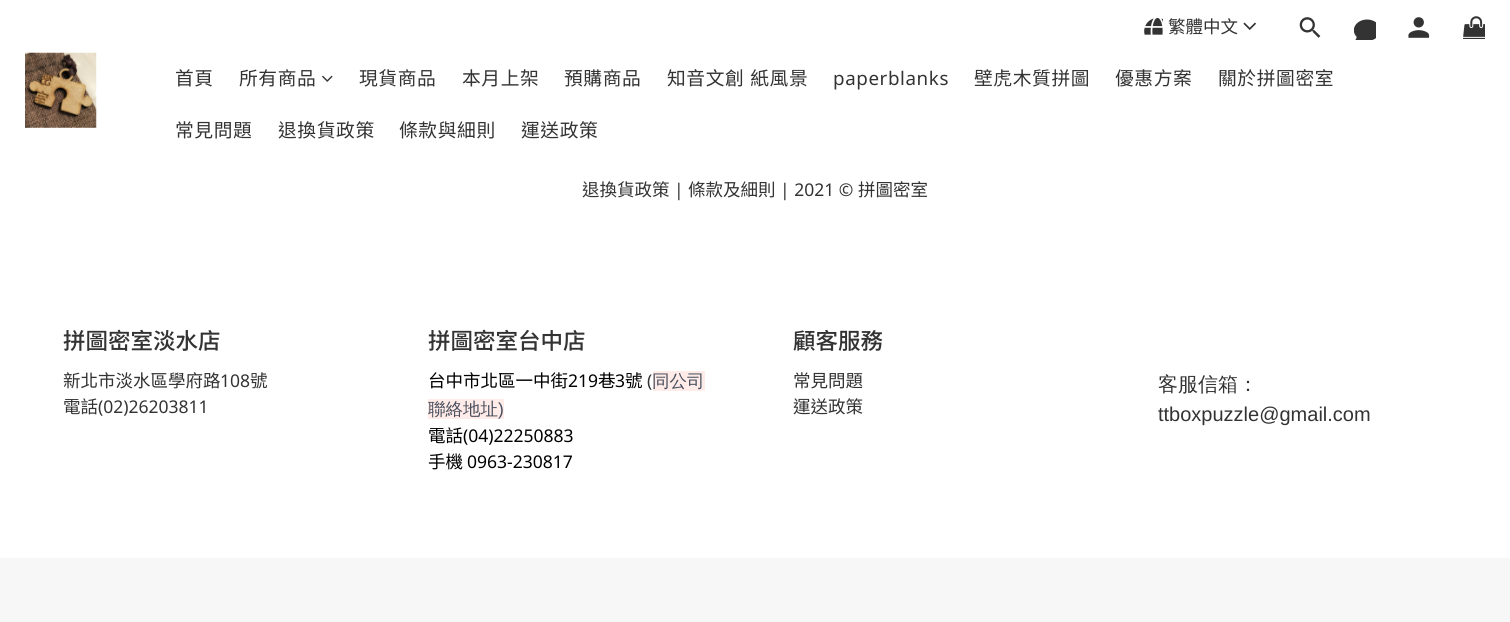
import math
import cairo


def use_color(cr, r, g, b):
  cr.set_source_rgb(r / 255, g / 255, b / 255)

def text(cr, x, y, s, family, size, color, bold=False, italic=False):
  cr.select_font_face(family, cairo.FONT_SLANT_ITALIC if italic else cairo.FONT_SLANT_NORMAL, cairo.FONT_WEIGHT_BOLD if bold else cairo.FONT_WEIGHT_NORMAL)
  cr.set_font_size(size)
  use_color(cr, *color)
  cr.move_to(x, y)
  cr.show_text(s)

def spaced_text(cr, x, y, s, letter, word):
  cr.move_to(x, y)
  for ch in s:
    cr.show_text(ch)
    cr.rel_move_to(letter + word * (ch == ' '), 0)

def box(cr, x, y, w, h, *color):
  use_color(cr, *color)
  cr.rectangle(x, y, w, h)
  cr.fill()

def picture(cr, path, x, y, w, h):
  cr.save()
  cr.set_source_surface(cairo.ImageSurface.create_from_png(path), x, y)
  cr.rectangle(x, y, w, h)
  cr.fill()
  cr.restore()

def draw(cr):
  use_color(cr, 255, 255, 255)
  cr.paint()
  picture(cr, "img_01.png", 1144, 18, 19, 17)
  picture(cr, "img_02.png", 1243, 22, 13, 8)
  picture(cr, "img_03.png", 1299, 17, 22, 21)
  picture(cr, "img_04.png", 1354, 19, 22, 21)
  picture(cr, "img_05.png", 1408, 17, 22, 21)
  picture(cr, "img_06.png", 1463, 16, 22, 23)
  picture(cr, "img_07.png", 25, 52, 72, 76)
  picture(cr, "img_08.png", 322, 75, 11, 7)
  box(cr, 653, 371, 52, 20, 255, 235, 231)
  box(cr, 428, 399, 76, 20, 255, 235, 231)
  box(cr, 0, 558, 1510, 64, 247, 247, 247)
  text(cr, 1168, 33, "繁體中文", "Noto Sans TC", 17.5, (51, 51, 51))
  cr.set_font_size(18.75)
  spaced_text(cr, 175, 85, "首頁", 0.6, 0)
  spaced_text(cr, 239, 85, "所有商品", 0.6, 0)
  spaced_text(cr, 359, 85, "現貨商品", 0.6, 0)
  spaced_text(cr, 462, 85, "本月上架", 0.6, 0)
  spaced_text(cr, 564, 85, "預購商品", 0.6, 0)
  spaced_text(cr, 667, 85, "知音文創 紙風景", 0.6, 1)
  cr.select_font_face("Noto Sans")
  spaced_text(cr, 833, 85, "paperblanks", 0.6, 0)
  cr.select_font_face("Noto Sans TC")
  spaced_text(cr, 974, 85, "壁虎木質拼圖", 0.6, 0)
  spaced_text(cr, 1115, 85, "優惠方案", 0.6, 0)
  spaced_text(cr, 1218, 85, "關於拼圖密室", 0.6, 0)
  spaced_text(cr, 175, 137, "常見問題", 0.6, 0)
  spaced_text(cr, 278, 137, "退換貨政策", 0.6, 0)
  spaced_text(cr, 399, 137, "條款與細則", 0.6, 0)
  spaced_text(cr, 521, 137, "運送政策", 0.6, 0)
  text(cr, 582, 196, "退換貨政策", "Noto Sans TC", 17.5, (51, 51, 51))
  text(cr, 674, 196, "|", "Noto Sans", 17.5, (51, 51, 51))
  text(cr, 688, 196, "條款及細則", "Noto Sans TC", 17.5, (51, 51, 51))
  text(cr, 780, 196, "| 2021 ©", "Noto Sans", 17.5, (51, 51, 51))
  text(cr, 858, 196, "拼圖密室", "Noto Sans TC", 17.5, (51, 51, 51))
  text(cr, 63, 349, "拼圖密室淡水店", "Noto Sans TC Medium", 22.5, (51, 51, 51))
  text(cr, 63, 387, "新北市淡水區學府路", "Noto Sans TC", 17.5, (51, 51, 51))
  text(cr, 220, 387, "108", "Noto Sans", 17.5, (51, 51, 51))
  text(cr, 250, 387, "號", "Noto Sans TC", 17.5, (51, 51, 51))
  text(cr, 63, 413, "電話", "Noto Sans TC", 17.5, (51, 51, 51))
  text(cr, 98, 413, "(02)26203811", "Noto Sans", 17.5, (51, 51, 51))
  text(cr, 428, 349, "拼圖密室台中店", "Noto Sans TC Medium", 22.5, (51, 51, 51))
  text(cr, 428, 387, "台中市北區一中街", "Noto Sans TC", 17.5, (0, 0, 0))
  text(cr, 568, 387, "219", "Noto Sans", 17.5, (0, 0, 0))
  text(cr, 598, 387, "巷", "Noto Sans TC", 17.5, (0, 0, 0))
  text(cr, 615, 387, "3", "Noto Sans", 17.5, (0, 0, 0))
  text(cr, 625, 387, "號", "Noto Sans TC", 17.5, (0, 0, 0))
  text(cr, 647, 387, "(", "Noto Sans", 17.5, (51, 51, 51))
  text(cr, 652, 387, "同公司", "WenQuanYi Zen Hei Medium", 17.5, (71, 79, 94))
  text(cr, 428, 415, "聯絡地址", "WenQuanYi Zen Hei Medium", 17.5, (71, 79, 94))
  text(cr, 498, 415, ")", "Liberation Sans", 17.5, (71, 79, 94))
  text(cr, 428, 442, "電話", "Noto Sans TC", 17.5, (0, 0, 0))
  text(cr, 463, 442, "(04)22250883", "Noto Sans", 17.5, (0, 0, 0))
  text(cr, 428, 468, "手機", "Noto Sans TC", 17.5, (0, 0, 0))
  text(cr, 467, 468, "0963-230817", "Noto Sans", 17.5, (0, 0, 0))
  text(cr, 793, 349, "顧客服務", "Noto Sans TC Medium", 22.5, (51, 51, 51))
  text(cr, 793, 387, "常見問題", "Noto Sans TC", 17.5, (51, 51, 51))
  text(cr, 793, 413, "運送政策", "Noto Sans TC", 17.5, (51, 51, 51))
  text(cr, 1158, 391, "客服信箱：", "WenQuanYi Zen Hei Medium", 20, (51, 51, 51))
  text(cr, 1158, 421, "ttboxpuzzle@gmail.com", "Liberation Sans", 20, (51, 51, 51))


surface = cairo.ImageSurface(cairo.FORMAT_RGB24, 1510, 622)
cr = cairo.Context(surface)
options = cairo.FontOptions()
options.set_hint_metrics(cairo.HINT_METRICS_OFF)
options.set_hint_style(cairo.HINT_STYLE_NONE)
cr.set_font_options(options)
cr.set_miter_limit(4)
draw(cr)
surface.write_to_png("out.png")
